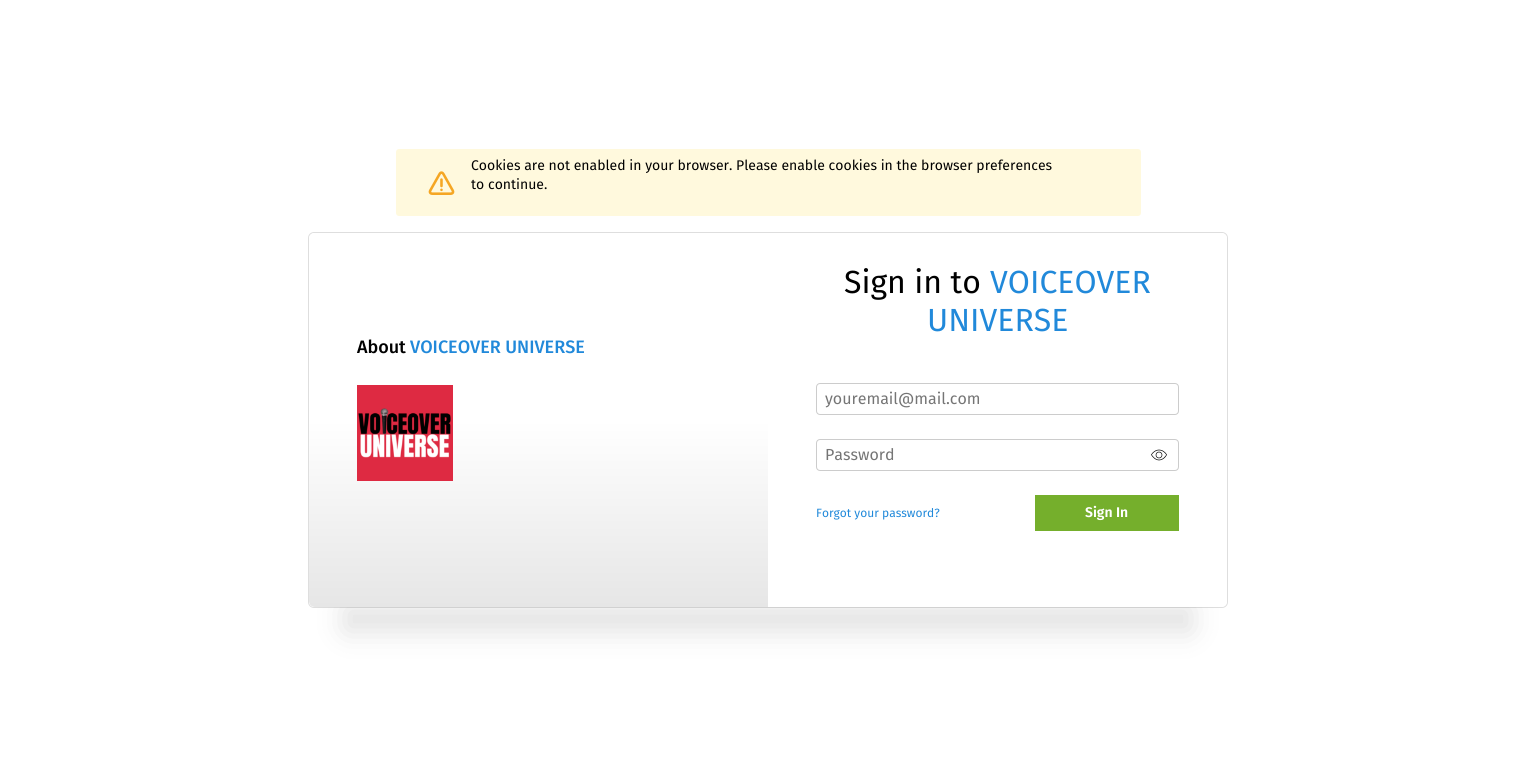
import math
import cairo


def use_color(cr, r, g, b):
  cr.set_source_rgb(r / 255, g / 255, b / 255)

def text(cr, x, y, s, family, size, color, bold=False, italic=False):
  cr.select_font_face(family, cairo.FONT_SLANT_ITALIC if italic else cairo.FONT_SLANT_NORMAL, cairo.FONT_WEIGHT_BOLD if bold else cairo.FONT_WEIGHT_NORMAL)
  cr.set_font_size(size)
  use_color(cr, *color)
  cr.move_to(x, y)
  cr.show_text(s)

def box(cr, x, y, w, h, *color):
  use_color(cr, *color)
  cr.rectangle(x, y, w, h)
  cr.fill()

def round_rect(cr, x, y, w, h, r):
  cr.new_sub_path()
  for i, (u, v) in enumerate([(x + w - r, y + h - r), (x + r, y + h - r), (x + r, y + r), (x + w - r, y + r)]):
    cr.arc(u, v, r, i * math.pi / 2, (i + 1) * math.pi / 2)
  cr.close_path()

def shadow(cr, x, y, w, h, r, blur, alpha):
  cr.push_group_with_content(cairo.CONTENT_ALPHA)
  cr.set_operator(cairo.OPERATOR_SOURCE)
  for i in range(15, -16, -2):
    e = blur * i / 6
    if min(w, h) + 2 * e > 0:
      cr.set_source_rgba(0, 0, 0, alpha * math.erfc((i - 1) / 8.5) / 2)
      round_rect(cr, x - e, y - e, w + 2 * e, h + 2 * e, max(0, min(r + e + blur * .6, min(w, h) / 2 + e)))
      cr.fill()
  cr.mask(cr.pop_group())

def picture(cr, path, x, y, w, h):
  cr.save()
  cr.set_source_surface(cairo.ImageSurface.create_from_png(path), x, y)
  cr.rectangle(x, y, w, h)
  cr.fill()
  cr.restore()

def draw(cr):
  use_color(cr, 255, 255, 255)
  cr.paint()
  use_color(cr, 255, 249, 221)
  round_rect(cr, 396, 149, 745, 67, 3)
  cr.fill()
  picture(cr, "img_01.png", 428, 171, 27, 24)
  round_rect(cr, 308.5, 232.5, 919, 375, 5.5)
  use_color(cr, 222, 222, 222)
  cr.set_line_width(1)
  cr.stroke()
  use_color(cr, 0, 0, 0)
  shadow(cr, 345, 607, 846, 24, 0, 15.5, 0.12)
  use_color(cr, 255, 255, 255)
  cr.new_path()
  cr.move_to(315, 233)
  cr.line_to(768, 233)
  cr.line_to(768, 607)
  cr.line_to(315, 607)
  cr.curve_to(311.5, 607, 309, 604.5, 309, 601)
  cr.line_to(309, 239)
  cr.curve_to(309, 235.5, 311.5, 233, 315, 233)
  cr.close_path()
  cr.fill()
  gradient = cairo.LinearGradient(539, 420, 539, 607)
  gradient.add_color_stop_rgba(0, 1, 1, 1, 1)
  gradient.add_color_stop_rgba(1, 0.902, 0.902, 0.902, 1)
  cr.set_source(gradient)
  cr.new_path()
  cr.move_to(309, 420)
  cr.line_to(768, 420)
  cr.line_to(768, 607)
  cr.line_to(315, 607)
  cr.curve_to(311.5, 607, 309, 604.5, 309, 601)
  cr.close_path()
  cr.fill()
  use_color(cr, 255, 255, 255)
  cr.new_path()
  cr.move_to(768, 233)
  cr.line_to(1221, 233)
  cr.curve_to(1224.5, 233, 1227, 235.5, 1227, 239)
  cr.line_to(1227, 601)
  cr.curve_to(1227, 604.5, 1224.5, 607, 1221, 607)
  cr.line_to(768, 607)
  cr.close_path()
  cr.fill()
  picture(cr, "img_02.png", 357, 385, 96, 96)
  round_rect(cr, 816.5, 383.5, 362, 31, 3.5)
  use_color(cr, 204, 204, 204)
  cr.stroke()
  round_rect(cr, 816.5, 439.5, 362, 31, 3.5)
  cr.stroke()
  picture(cr, "img_03.png", 1151, 449, 16, 12)
  box(cr, 1035, 495, 144, 36, 117, 175, 44)
  text(cr, 471, 170, "Cookies are not enabled in your browser. Please enable cookies in the browser preferences", "Fira Sans", 14, (0, 0, 0))
  text(cr, 471, 189, "to continue.", "Fira Sans", 14, (0, 0, 0))
  text(cr, 357, 353, "About", "Fira Sans Medium", 18, (0, 0, 0))
  text(cr, 410, 353, "VOICEOVER UNIVERSE", "Fira Sans Medium", 18, (33, 137, 218))
  text(cr, 844, 293, "Sign in to", "Fira Sans", 32, (0, 0, 0))
  text(cr, 990, 293, "VOICEOVER", "Fira Sans", 32, (33, 137, 218))
  text(cr, 927, 331, "UNIVERSE", "Fira Sans", 32, (33, 137, 218))
  text(cr, 825, 404, "youremail@mail.com", "Fira Sans", 16, (117, 117, 117))
  text(cr, 825, 460, "Password", "Fira Sans", 16, (117, 117, 117))
  text(cr, 816, 517, "Forgot your password?", "Fira Sans", 12, (33, 137, 218))
  text(cr, 1085, 517, "Sign In", "Fira Sans SemiBold", 14, (255, 255, 255))


surface = cairo.ImageSurface(cairo.FORMAT_RGB24, 1536, 757)
cr = cairo.Context(surface)
options = cairo.FontOptions()
options.set_hint_metrics(cairo.HINT_METRICS_OFF)
options.set_hint_style(cairo.HINT_STYLE_NONE)
cr.set_font_options(options)
cr.set_miter_limit(4)
draw(cr)
surface.write_to_png("out.png")
